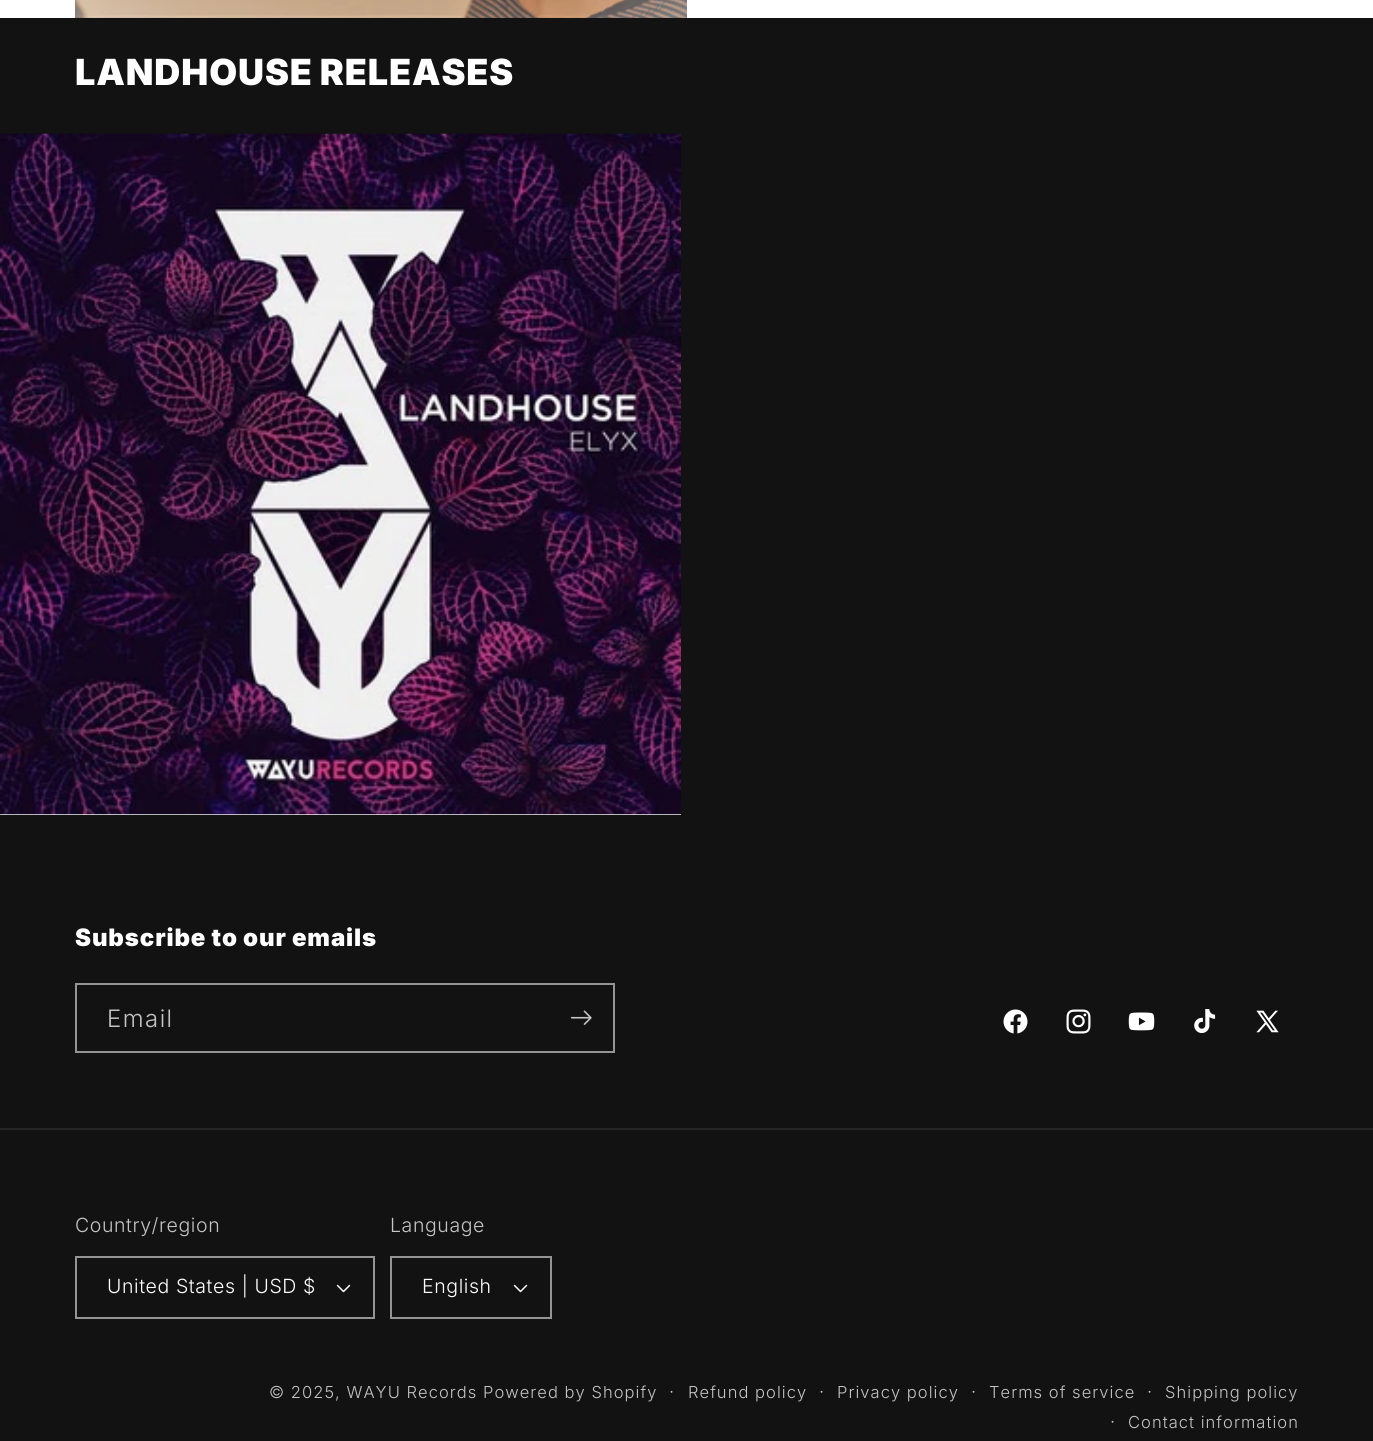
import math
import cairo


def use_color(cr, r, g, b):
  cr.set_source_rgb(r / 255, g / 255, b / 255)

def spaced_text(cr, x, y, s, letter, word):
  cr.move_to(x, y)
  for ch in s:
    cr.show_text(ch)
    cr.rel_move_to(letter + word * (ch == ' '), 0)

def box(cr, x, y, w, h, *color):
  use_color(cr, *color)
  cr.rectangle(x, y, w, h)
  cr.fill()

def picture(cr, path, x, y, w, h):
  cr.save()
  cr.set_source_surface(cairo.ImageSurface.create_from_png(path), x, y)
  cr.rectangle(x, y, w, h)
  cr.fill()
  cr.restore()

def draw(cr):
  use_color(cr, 255, 255, 255)
  cr.paint()
  picture(cr, "img_01.png", 75, 0, 612, 18)
  box(cr, 0, 18, 1373, 1423, 18, 18, 18)
  box(cr, 0, 814, 681, 1, 243, 243, 243)
  picture(cr, "img_02.png", 0, 133, 681, 682)
  cr.rectangle(76, 984, 538, 68)
  use_color(cr, 148, 148, 148)
  cr.stroke()
  picture(cr, "img_03.png", 570, 1010, 22, 15)
  picture(cr, "img_04.png", 1003, 1009, 25, 25)
  picture(cr, "img_05.png", 1066, 1009, 25, 25)
  picture(cr, "img_06.png", 1128, 1012, 27, 19)
  picture(cr, "img_07.png", 1194, 1009, 22, 25)
  picture(cr, "img_08.png", 1256, 1010, 23, 23)
  box(cr, 0, 1128, 1373, 2, 37, 37, 37)
  picture(cr, "img_09.png", 336, 1284, 15, 9)
  cr.rectangle(76, 1257, 298, 61)
  use_color(cr, 148, 148, 148)
  cr.stroke()
  picture(cr, "img_09.png", 513, 1284, 15, 9)
  cr.rectangle(391, 1257, 160, 61)
  cr.stroke()
  cr.select_font_face("Inter Black")
  cr.set_font_size(36)
  use_color(cr, 255, 255, 255)
  spaced_text(cr, 75, 85, "LANDHOUSE RELEASES", 0.9, -1)
  cr.set_font_size(24)
  spaced_text(cr, 75, 946, "Subscribe to our emails", 0.9, -0.5)
  cr.select_font_face("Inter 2 Light")
  use_color(cr, 196, 196, 196)
  spaced_text(cr, 107, 1027, "Email", 1.5, 0)
  cr.select_font_face("Inter Light")
  cr.set_font_size(19.5)
  spaced_text(cr, 75, 1232, "Country/region", 0.6, 0)
  use_color(cr, 255, 255, 255)
  spaced_text(cr, 107, 1293, "United States | USD $", 0.6, 0)
  use_color(cr, 196, 196, 196)
  spaced_text(cr, 390, 1232, "Language", 0.6, 0)
  use_color(cr, 255, 255, 255)
  spaced_text(cr, 422, 1293, "English", 0.6, 0)
  cr.set_font_size(16.5)
  use_color(cr, 196, 196, 196)
  spaced_text(cr, 269, 1398, "© 2025, WAYU Records", 1.05, 0)
  spaced_text(cr, 483, 1398, "Powered by Shopify", 1.05, 0)
  cr.set_font_size(18)
  spaced_text(cr, 669, 1398, "·", 1.05, 0)
  cr.set_font_size(16.5)
  spaced_text(cr, 688, 1398, "Refund policy", 1.05, 0)
  cr.set_font_size(18)
  spaced_text(cr, 819, 1398, "·", 1.05, 0)
  cr.set_font_size(16.5)
  spaced_text(cr, 837, 1398, "Privacy policy", 1.05, 0)
  cr.set_font_size(18)
  spaced_text(cr, 971, 1398, "·", 1.05, 0)
  cr.set_font_size(16.5)
  spaced_text(cr, 989, 1398, "Terms of service", 1.05, 0)
  cr.set_font_size(18)
  spaced_text(cr, 1147, 1398, "·", 1.05, 0)
  cr.set_font_size(16.5)
  spaced_text(cr, 1165, 1398, "Shipping policy", 1.05, 0)
  cr.set_font_size(18)
  spaced_text(cr, 1110, 1428, "·", 1.05, 0)
  cr.set_font_size(16.5)
  spaced_text(cr, 1128, 1428, "Contact information", 1.05, 0)


surface = cairo.ImageSurface(cairo.FORMAT_RGB24, 1373, 1441)
cr = cairo.Context(surface)
options = cairo.FontOptions()
options.set_hint_metrics(cairo.HINT_METRICS_OFF)
options.set_hint_style(cairo.HINT_STYLE_NONE)
cr.set_font_options(options)
cr.set_miter_limit(4)
draw(cr)
surface.write_to_png("out.png")
